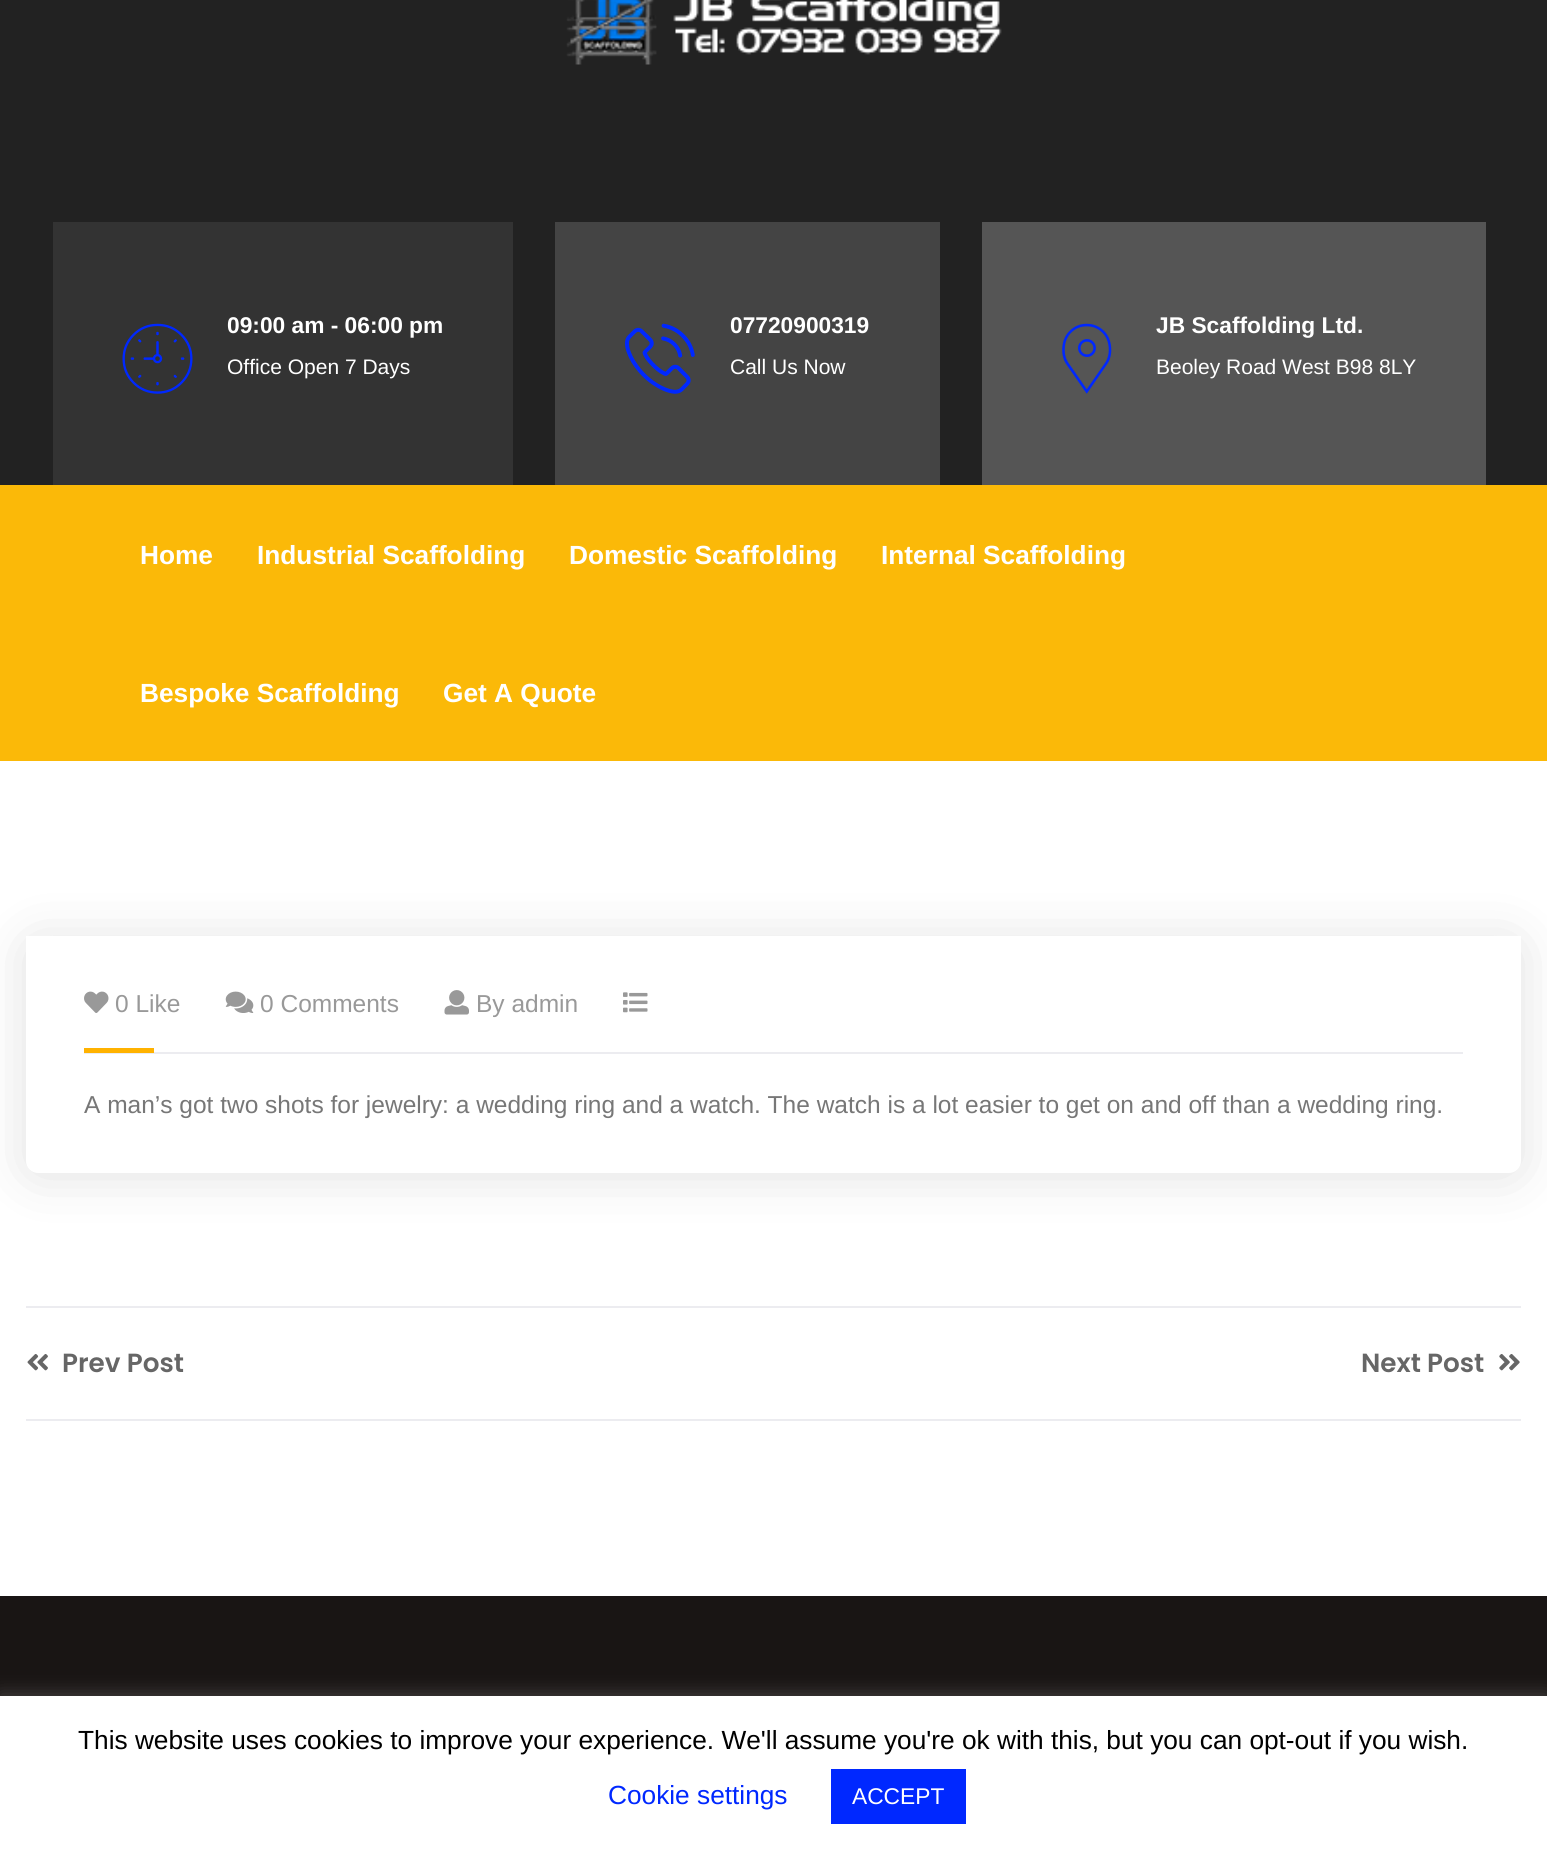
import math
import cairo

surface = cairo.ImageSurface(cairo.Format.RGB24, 1547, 1853)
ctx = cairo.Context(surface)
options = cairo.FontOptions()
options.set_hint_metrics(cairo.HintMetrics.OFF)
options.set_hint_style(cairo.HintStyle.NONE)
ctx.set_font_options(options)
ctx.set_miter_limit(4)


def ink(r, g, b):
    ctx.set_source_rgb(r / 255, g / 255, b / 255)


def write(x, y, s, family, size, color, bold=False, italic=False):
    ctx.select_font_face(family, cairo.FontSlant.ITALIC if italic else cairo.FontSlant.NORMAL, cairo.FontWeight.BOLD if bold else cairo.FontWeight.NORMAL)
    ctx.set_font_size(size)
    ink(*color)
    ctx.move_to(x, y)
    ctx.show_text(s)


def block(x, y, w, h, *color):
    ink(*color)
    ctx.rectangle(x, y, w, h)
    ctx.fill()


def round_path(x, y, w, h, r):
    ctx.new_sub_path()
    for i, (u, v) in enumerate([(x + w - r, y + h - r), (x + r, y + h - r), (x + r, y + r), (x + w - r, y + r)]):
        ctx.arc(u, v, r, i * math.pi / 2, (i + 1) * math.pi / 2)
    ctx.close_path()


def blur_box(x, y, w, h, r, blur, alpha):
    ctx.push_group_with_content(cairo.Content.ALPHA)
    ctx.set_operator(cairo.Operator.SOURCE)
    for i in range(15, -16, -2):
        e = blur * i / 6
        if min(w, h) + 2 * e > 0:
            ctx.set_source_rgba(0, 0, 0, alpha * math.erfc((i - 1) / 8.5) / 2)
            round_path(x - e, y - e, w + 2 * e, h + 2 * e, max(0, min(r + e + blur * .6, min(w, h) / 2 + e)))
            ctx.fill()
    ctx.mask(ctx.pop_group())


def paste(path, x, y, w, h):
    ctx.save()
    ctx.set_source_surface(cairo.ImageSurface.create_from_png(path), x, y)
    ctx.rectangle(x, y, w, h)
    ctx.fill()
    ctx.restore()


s1 = dict(family="Arimo", size=22.75, color=(255, 255, 255), bold=True)
s2 = dict(family="Arimo", size=21, color=(255, 255, 255))
s3 = dict(family="Arimo", size=26.25, color=(255, 255, 255), bold=True)
s4 = dict(family="Arimo", size=24.5, color=(153, 153, 153))
s5 = dict(family="Arimo", size=24.5, color=(119, 119, 119))
s6 = dict(family="Poppins SemiBold", size=26.25, color=(102, 102, 102))
s7 = dict(family="Arimo", size=26.25, color=(0, 0, 0))
s8 = dict(family="Arimo", size=26.25, color=(0, 40, 255))
s9 = dict(family="Arimo", size=22.75, color=(255, 255, 255))

ink(255, 255, 255)
ctx.paint()
block(0, 0, 1547, 485, 34, 34, 34)
paste("pic1.png", 566, 0, 436, 65)
block(53, 222, 460, 263, 51, 51, 51)
paste("pic2.png", 122, 323, 71, 71)
write(227, 333, "09:00 am - 06:00 pm", **s1)
write(227, 374, "Office Open 7 Days", **s2)
block(555, 222, 385, 263, 68, 68, 68)
paste("pic3.png", 625, 323, 70, 71)
write(730, 333, "07720900319", **s1)
write(730, 374, "Call Us Now", **s2)
block(982, 222, 504, 263, 85, 85, 85)
paste("pic4.png", 1062, 323, 50, 71)
write(1156, 333, "JB Scaffolding Ltd.", **s1)
write(1156, 374, "Beoley Road West B98 8LY", **s2)
block(0, 485, 1547, 276, 251, 185, 8)
write(140, 564, "Home", **s3)
write(257, 564, "Industrial Scaffolding", **s3)
write(569, 564, "Domestic Scaffolding", **s3)
write(881, 564, "Internal Scaffolding", **s3)
write(140, 702, "Bespoke Scaffolding", **s3)
write(443, 702, "Get A Quote", **s3)
ink(34, 34, 34)
blur_box(26, 940, 1495, 236, 12, 25.5, 0.14)
ink(255, 255, 255)
ctx.new_path()
ctx.move_to(26, 936)
ctx.line_to(1521, 936)
ctx.line_to(1521, 1161)
ctx.curve_to(1521, 1167.5, 1515.5, 1173, 1509, 1173)
ctx.line_to(38, 1173)
ctx.curve_to(31.5, 1173, 26, 1167.5, 26, 1161)
ctx.close_path()
ctx.fill()
block(84, 1052, 1379, 2, 236, 236, 240)
paste("pic5.png", 84, 991, 25, 22)
write(115, 1012, "0 Like", **s4)
paste("pic6.png", 225, 991, 29, 22)
write(260, 1012, "0 Comments", **s4)
paste("pic7.png", 444, 990, 25, 25)
write(476, 1012, "By admin", **s4)
paste("pic8.png", 623, 992, 25, 21)
block(84, 1048, 70, 5, 255, 178, 0)
write(84, 1113, "A man’s got two shots for jewelry: a wedding ring and a watch. The watch is a lot easier to get on and off than a wedding ring.", **s5)
block(26, 1306, 1495, 2, 236, 236, 240)
block(26, 1419, 1495, 2, 236, 236, 240)
paste("pic9.png", 27, 1354, 21, 17)
write(62, 1372, "Prev Post", **s6)
write(1361, 1372, "Next Post", **s6)
paste("pic10.png", 1499, 1354, 21, 17)
block(0, 1596, 1547, 100, 25, 21, 20)
ink(172, 171, 171)
blur_box(0, 1694, 1547, 158, 0, 9, 0.3)
block(0, 1696, 1547, 157, 255, 255, 255)
write(78, 1749, "This website uses cookies to improve your experience. We'll assume you're ok with this, but you can opt-out if you wish.", **s7)
write(608, 1804, "Cookie settings", **s8)
block(831, 1769, 135, 55, 0, 40, 255)
write(852, 1804, "ACCEPT", **s9)
surface.write_to_png("screenshot.png")
